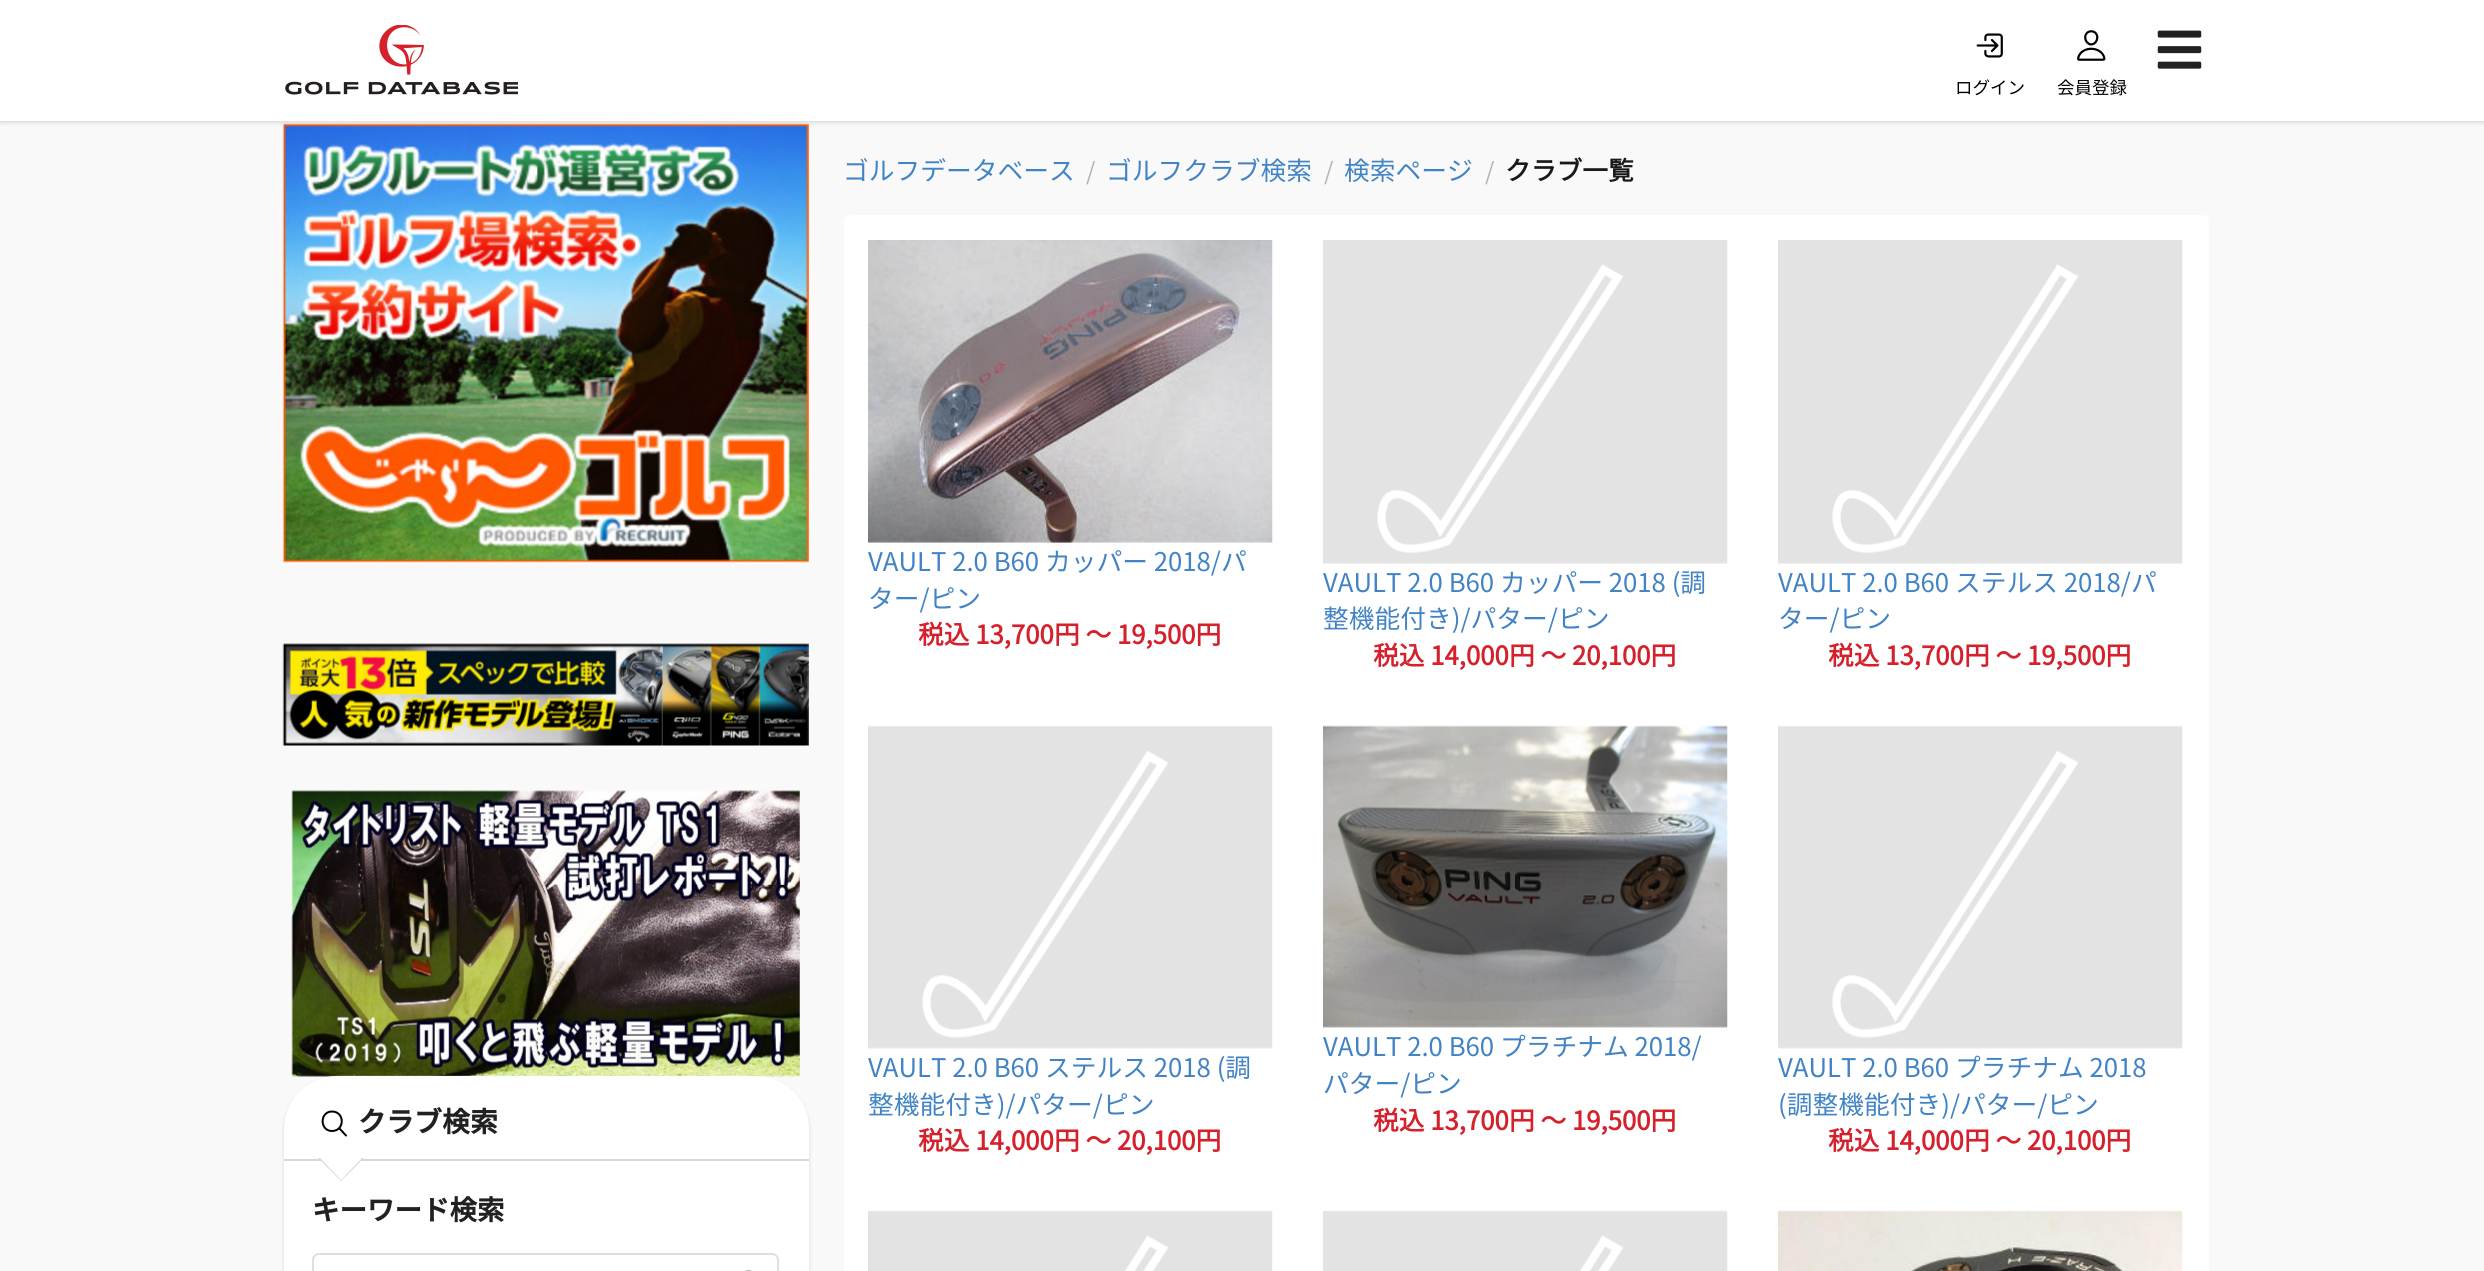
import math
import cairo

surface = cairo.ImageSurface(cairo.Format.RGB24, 2484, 1271)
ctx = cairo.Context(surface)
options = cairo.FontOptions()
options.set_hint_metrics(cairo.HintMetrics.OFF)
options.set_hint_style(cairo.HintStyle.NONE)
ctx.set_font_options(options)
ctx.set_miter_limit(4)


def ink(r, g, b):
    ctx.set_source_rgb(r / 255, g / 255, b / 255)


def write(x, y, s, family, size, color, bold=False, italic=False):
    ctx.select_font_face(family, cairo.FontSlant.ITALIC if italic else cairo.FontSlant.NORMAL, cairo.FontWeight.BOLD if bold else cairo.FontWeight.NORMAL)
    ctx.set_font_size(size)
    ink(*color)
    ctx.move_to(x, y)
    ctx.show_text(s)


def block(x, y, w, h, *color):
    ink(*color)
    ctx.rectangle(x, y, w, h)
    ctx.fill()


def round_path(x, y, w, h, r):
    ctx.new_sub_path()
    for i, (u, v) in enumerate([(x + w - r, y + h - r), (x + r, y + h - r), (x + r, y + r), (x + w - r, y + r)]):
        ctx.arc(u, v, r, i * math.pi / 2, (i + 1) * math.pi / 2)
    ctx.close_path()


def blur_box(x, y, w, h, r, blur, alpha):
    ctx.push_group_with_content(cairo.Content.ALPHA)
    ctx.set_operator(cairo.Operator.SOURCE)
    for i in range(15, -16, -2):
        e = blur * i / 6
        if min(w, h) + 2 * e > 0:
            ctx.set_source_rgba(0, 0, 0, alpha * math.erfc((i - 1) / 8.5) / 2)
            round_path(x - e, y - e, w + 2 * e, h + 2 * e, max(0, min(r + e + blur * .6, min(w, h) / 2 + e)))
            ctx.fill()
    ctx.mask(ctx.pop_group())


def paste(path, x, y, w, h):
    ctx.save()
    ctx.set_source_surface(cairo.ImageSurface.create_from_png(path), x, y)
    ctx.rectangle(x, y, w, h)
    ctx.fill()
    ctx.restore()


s1 = dict(family="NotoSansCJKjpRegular", size=17.5, color=(0, 0, 0))
s2 = dict(family="Noto Sans CJK JP", size=28, color=(33, 33, 33), bold=True)
s3 = dict(family="Noto Sans CJK JP", size=27.5, color=(33, 33, 33), bold=True)
s4 = dict(family="NotoSansCJKjpRegular", size=25.75, color=(65, 131, 196))
s5 = dict(family="NotoSansCJKjpRegular", size=24, color=(179, 179, 179))
s6 = dict(family="NotoSansCJKjpRegular", size=25.75, color=(26, 24, 25), bold=True)
s7 = dict(family="NotoSansCJKjpRegular", size=25.75, color=(212, 33, 43), bold=True)

ink(249, 249, 249)
ctx.paint()
paste("pic5.png", 282, 123, 527, 440)
ink(34, 36, 38)
blur_box(0, 2, 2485, 121, 0, 2, 0.15)
block(0, 0, 2484, 121, 255, 255, 255)
paste("pic1.png", 285, 25, 233, 70)
paste("pic2.png", 2157, 30, 45, 39)
paste("pic3.png", 1976, 33, 27, 25)
write(1955, 94, "ログイン", **s1)
paste("pic4.png", 2077, 30, 29, 31)
write(2057, 94, "会員登録", **s1)
paste("pic6.png", 282, 643, 527, 103)
paste("pic7.png", 291, 790, 509, 287)
ink(34, 36, 38)
blur_box(284, 1078, 525, 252, 53, 2, 0.15)
ink(255, 255, 255)
round_path(284, 1076, 525, 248, 53)
ctx.fill()
block(284, 1159, 525, 2, 217, 216, 216)
ctx.new_path()
ctx.move_to(332, 1111.5)
ctx.curve_to(319.5, 1111.5, 319.5, 1131, 332, 1131)
ctx.curve_to(345, 1131, 345, 1111.5, 332, 1111.5)
ctx.close_path()
ink(0, 0, 0)
ctx.stroke()
write(358, 1132, "クラブ検索", **s2)
ctx.new_path()
ctx.move_to(339.5, 1128.5)
ctx.line_to(346, 1135.5)
ink(0, 0, 0)
ctx.set_line_cap(cairo.LineCap.ROUND)
ctx.stroke()
ink(217, 216, 216)
ctx.new_path()
ctx.move_to(318, 1158)
ctx.line_to(364, 1158)
ctx.line_to(341, 1181)
ctx.close_path()
ctx.fill()
ink(255, 255, 255)
ctx.new_path()
ctx.move_to(320, 1158)
ctx.line_to(362, 1158)
ctx.line_to(341, 1180)
ctx.close_path()
ctx.fill()
write(312, 1220, "キーワード検索", **s3)
round_path(313, 1254, 465, 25, 6)
ink(222, 222, 222)
ctx.set_line_cap(cairo.LineCap.BUTT)
ctx.stroke()
paste("pic8.png", 745, 1270, 7, 1)
write(843, 180, "ゴルフデータベース", **s4)
write(1086, 180, "/", **s5)
write(1106, 180, "ゴルフクラブ検索", **s4)
write(1324, 180, "/", **s5)
write(1344, 180, "検索ページ", **s4)
write(1485, 180, "/", **s5)
write(1505, 180, "クラブ一覧", **s6)
ink(255, 255, 255)
round_path(844, 215, 1365, 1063, 7)
ctx.fill()
paste("pic9.png", 868, 240, 405, 303)
write(868, 571, "VAULT 2.0 B60 カッパー 2018/パ", **s4)
write(868, 608, "ター/ピン", **s4)
write(918, 644, "税込 13,700円 ～ 19,500円", **s7)
paste("pic10.png", 1323, 240, 405, 324)
write(1323, 592, "VAULT 2.0 B60 カッパー 2018 (調", **s4)
write(1323, 628, "整機能付き)/パター/ピン", **s4)
write(1373, 665, "税込 14,000円 ～ 20,100円", **s7)
paste("pic11.png", 1778, 240, 405, 324)
write(1778, 592, "VAULT 2.0 B60 ステルス 2018/パ", **s4)
write(1778, 628, "ター/ピン", **s4)
write(1828, 665, "税込 13,700円 ～ 19,500円", **s7)
paste("pic12.png", 868, 725, 405, 324)
write(868, 1077, "VAULT 2.0 B60 ステルス 2018 (調", **s4)
write(868, 1114, "整機能付き)/パター/ピン", **s4)
write(918, 1150, "税込 14,000円 ～ 20,100円", **s7)
paste("pic13.png", 1323, 725, 405, 303)
write(1323, 1056, "VAULT 2.0 B60 プラチナム 2018/", **s4)
write(1323, 1093, "パター/ピン", **s4)
write(1373, 1130, "税込 13,700円 ～ 19,500円", **s7)
paste("pic14.png", 1778, 725, 405, 324)
write(1778, 1077, "VAULT 2.0 B60 プラチナム 2018", **s4)
write(1778, 1114, "(調整機能付き)/パター/ピン", **s4)
write(1828, 1150, "税込 14,000円 ～ 20,100円", **s7)
paste("pic15.png", 868, 1210, 405, 61)
paste("pic15.png", 1323, 1210, 405, 61)
paste("pic16.png", 1778, 1210, 405, 61)
surface.write_to_png("screenshot.png")
